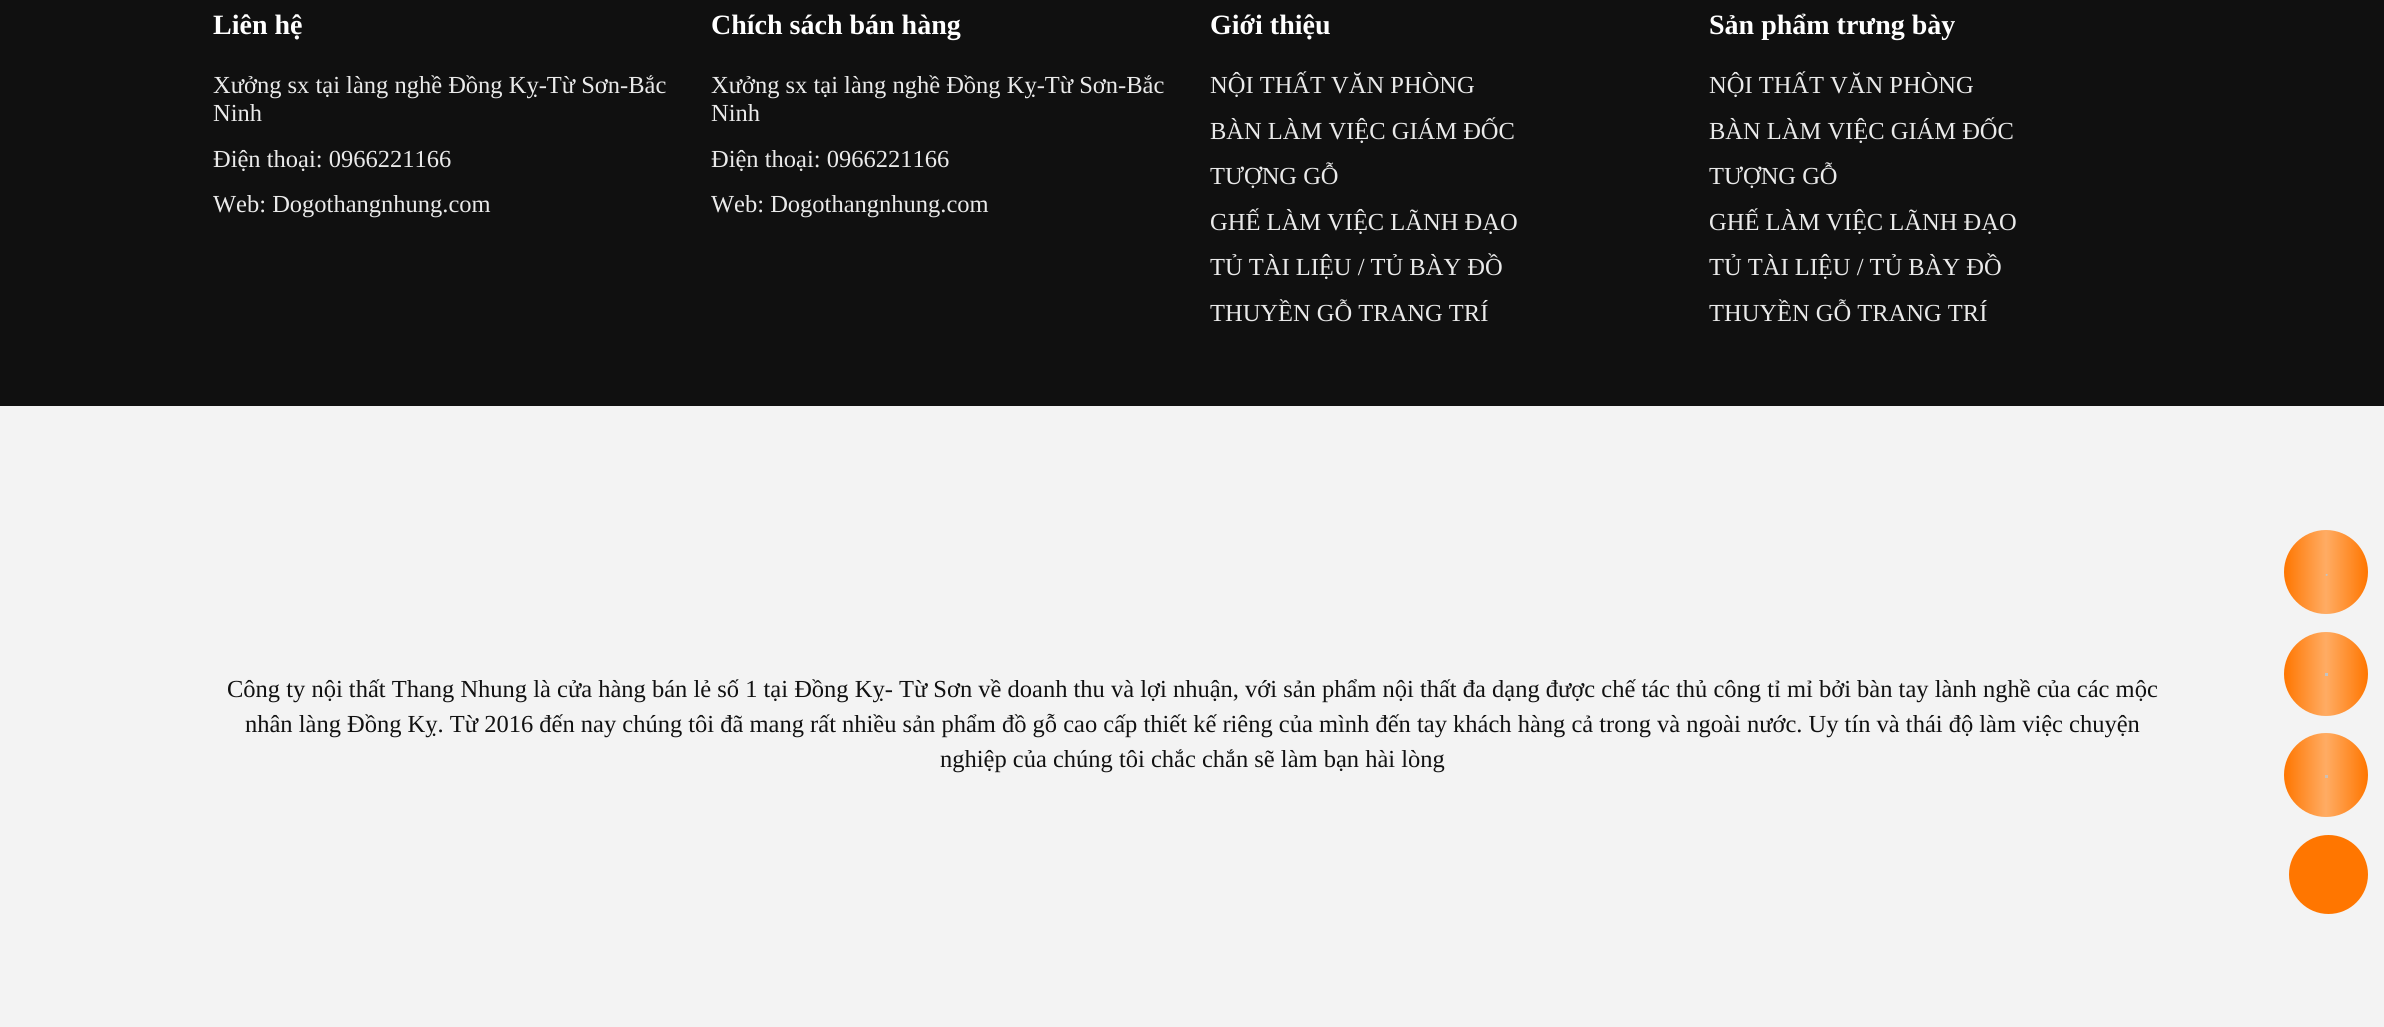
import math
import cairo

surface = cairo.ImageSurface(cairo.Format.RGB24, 2384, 1027)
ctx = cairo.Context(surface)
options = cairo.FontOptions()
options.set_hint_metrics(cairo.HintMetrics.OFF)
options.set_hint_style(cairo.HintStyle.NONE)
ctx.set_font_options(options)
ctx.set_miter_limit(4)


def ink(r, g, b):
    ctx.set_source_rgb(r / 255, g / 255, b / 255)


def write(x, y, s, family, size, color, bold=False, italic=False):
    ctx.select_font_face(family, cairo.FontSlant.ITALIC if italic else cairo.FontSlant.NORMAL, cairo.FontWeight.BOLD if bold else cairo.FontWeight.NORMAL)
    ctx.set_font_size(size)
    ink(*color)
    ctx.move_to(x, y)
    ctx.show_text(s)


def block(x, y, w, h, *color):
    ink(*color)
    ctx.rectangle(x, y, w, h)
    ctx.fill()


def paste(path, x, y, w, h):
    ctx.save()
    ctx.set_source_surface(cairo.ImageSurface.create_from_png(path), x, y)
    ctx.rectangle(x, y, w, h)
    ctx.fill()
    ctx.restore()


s1 = dict(family="Liberation Serif", size=28, color=(255, 255, 255), bold=True)
s2 = dict(family="Liberation Serif", size=24.5, color=(234, 234, 234))
s3 = dict(family="Liberation Serif", size=24.5, color=(17, 17, 17))

ink(16, 16, 16)
ctx.paint()
write(213, 34, "Liên hệ", **s1)
write(213, 93, "Xưởng sx tại làng nghề Đồng Kỵ-Từ Sơn-Bắc", **s2)
write(213, 121, "Ninh", **s2)
write(213, 167, "Điện thoại: 0966221166", **s2)
write(213, 212, "Web: Dogothangnhung.com", **s2)
write(711, 34, "Chích sách bán hàng", **s1)
write(711, 93, "Xưởng sx tại làng nghề Đồng Kỵ-Từ Sơn-Bắc", **s2)
write(711, 121, "Ninh", **s2)
write(711, 167, "Điện thoại: 0966221166", **s2)
write(711, 212, "Web: Dogothangnhung.com", **s2)
write(1210, 34, "Giới thiệu", **s1)
write(1210, 93, "NỘI THẤT VĂN PHÒNG", **s2)
write(1210, 139, "BÀN LÀM VIỆC GIÁM ĐỐC", **s2)
write(1210, 184, "TƯỢNG GỖ", **s2)
write(1210, 230, "GHẾ LÀM VIỆC LÃNH ĐẠO", **s2)
write(1210, 275, "TỦ TÀI LIỆU / TỦ BÀY ĐỒ", **s2)
write(1210, 321, "THUYỀN GỖ TRANG TRÍ", **s2)
write(1709, 34, "Sản phẩm trưng bày", **s1)
write(1709, 93, "NỘI THẤT VĂN PHÒNG", **s2)
write(1709, 139, "BÀN LÀM VIỆC GIÁM ĐỐC", **s2)
write(1709, 184, "TƯỢNG GỖ", **s2)
write(1709, 230, "GHẾ LÀM VIỆC LÃNH ĐẠO", **s2)
write(1709, 275, "TỦ TÀI LIỆU / TỦ BÀY ĐỒ", **s2)
write(1709, 321, "THUYỀN GỖ TRANG TRÍ", **s2)
block(0, 406, 2384, 621, 243, 243, 243)
write(227, 697, "Công ty nội thất Thang Nhung là cửa hàng bán lẻ số 1 tại Đồng Kỵ- Từ Sơn về doanh thu và lợi nhuận, với sản phẩm nội thất đa dạng được chế tác thủ công tỉ mỉ bởi bàn tay lành nghề của các mộc", **s3)
write(245, 732, "nhân làng Đồng Kỵ. Từ 2016 đến nay chúng tôi đã mang rất nhiều sản phẩm đồ gỗ cao cấp thiết kế riêng của mình đến tay khách hàng cả trong và ngoài nước. Uy tín và thái độ làm việc chuyện", **s3)
write(940, 767, "nghiệp của chúng tôi chắc chắn sẽ làm bạn hài lòng", **s3)
gradient = cairo.LinearGradient(2284, 572, 2368, 572)
gradient.add_color_stop_rgba(0, 1, 0.463, 0, 1)
gradient.add_color_stop_rgba(0.5, 1, 0.675, 0.392, 1)
gradient.add_color_stop_rgba(1, 1, 0.463, 0, 1)
ctx.set_source(gradient)
ctx.new_path()
ctx.arc(2326, 572, 42, 0, 2 * math.pi)
ctx.fill()
paste("pic1.png", 2325, 574, 3, 2)
gradient = cairo.LinearGradient(2284, 674, 2368, 674)
gradient.add_color_stop_rgba(0, 1, 0.463, 0, 1)
gradient.add_color_stop_rgba(0.5, 1, 0.675, 0.392, 1)
gradient.add_color_stop_rgba(1, 1, 0.463, 0, 1)
ctx.set_source(gradient)
ctx.arc(2326, 674, 42, 0, 2 * math.pi)
ctx.fill()
block(2325, 673, 3, 3, 195, 195, 195)
gradient = cairo.LinearGradient(2284, 775, 2368, 775)
gradient.add_color_stop_rgba(0, 1, 0.463, 0, 1)
gradient.add_color_stop_rgba(0.5, 1, 0.675, 0.392, 1)
gradient.add_color_stop_rgba(1, 1, 0.463, 0, 1)
ctx.set_source(gradient)
ctx.arc(2326, 775, 42, 0, 2 * math.pi)
ctx.fill()
gradient = cairo.LinearGradient(2284, 775, 2368, 775)
gradient.add_color_stop_rgba(0, 0.812, 0.71, 0.624, 1)
gradient.add_color_stop_rgba(0.5, 0.812, 0.749, 0.698, 1)
gradient.add_color_stop_rgba(1, 0.812, 0.71, 0.624, 1)
ctx.set_source(gradient)
ctx.rectangle(2325, 775, 3, 3)
ctx.fill()
ink(255, 118, 0)
ctx.arc(2328.5, 874.5, 39.5, 0, 2 * math.pi)
ctx.fill()
surface.write_to_png("screenshot.png")
